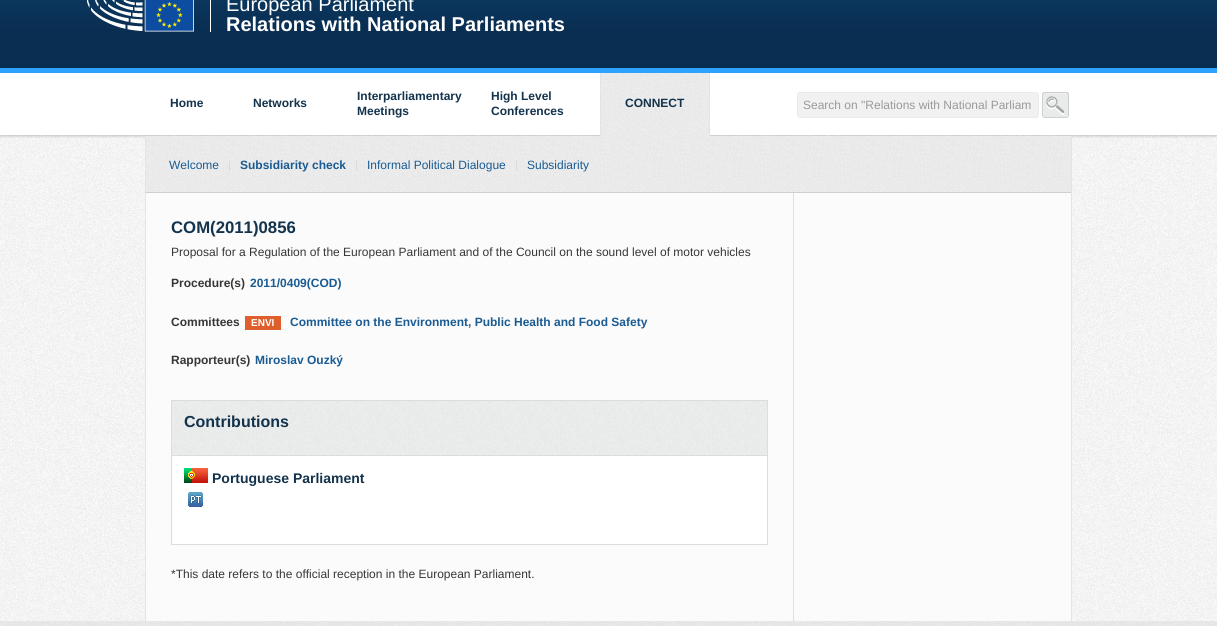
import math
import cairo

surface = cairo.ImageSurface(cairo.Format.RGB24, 1217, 626)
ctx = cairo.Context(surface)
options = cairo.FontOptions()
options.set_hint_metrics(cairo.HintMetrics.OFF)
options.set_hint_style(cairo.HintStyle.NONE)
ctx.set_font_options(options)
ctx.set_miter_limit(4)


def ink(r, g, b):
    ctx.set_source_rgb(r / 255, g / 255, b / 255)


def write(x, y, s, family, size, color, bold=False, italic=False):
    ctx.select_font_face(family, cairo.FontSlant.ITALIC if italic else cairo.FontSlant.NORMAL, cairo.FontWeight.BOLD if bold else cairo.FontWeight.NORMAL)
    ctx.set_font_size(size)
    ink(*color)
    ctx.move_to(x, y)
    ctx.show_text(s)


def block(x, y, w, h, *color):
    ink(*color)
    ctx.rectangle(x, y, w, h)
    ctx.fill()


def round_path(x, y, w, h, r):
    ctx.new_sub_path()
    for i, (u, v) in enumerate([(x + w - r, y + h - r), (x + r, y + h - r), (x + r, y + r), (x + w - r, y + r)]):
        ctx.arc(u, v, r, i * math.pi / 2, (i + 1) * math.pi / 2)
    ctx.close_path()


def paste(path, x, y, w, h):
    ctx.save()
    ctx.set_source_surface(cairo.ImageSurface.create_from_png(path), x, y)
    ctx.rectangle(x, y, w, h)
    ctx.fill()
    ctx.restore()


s1 = dict(family="Liberation Sans", size=20, color=(255, 255, 255))
s2 = dict(family="Liberation Sans", size=20, color=(255, 255, 255), bold=True)
s3 = dict(family="Liberation Sans", size=12, color=(19, 51, 77), bold=True)
s4 = dict(family="Liberation Sans", size=12, color=(153, 153, 153))
s5 = dict(family="Liberation Sans", size=12, color=(25, 91, 146))
s6 = dict(family="Liberation Sans", size=12, color=(25, 91, 146), bold=True)
s7 = dict(family="Liberation Sans", size=16.75, color=(19, 51, 77), bold=True)
s8 = dict(family="Liberation Sans", size=12, color=(54, 54, 54))
s9 = dict(family="Liberation Sans", size=12, color=(54, 54, 54), bold=True)
s10 = dict(family="Liberation Sans", size=10, color=(255, 255, 255), bold=True)
s11 = dict(family="Liberation Sans", size=16, color=(19, 51, 77), bold=True)
s12 = dict(family="Liberation Sans", size=14, color=(19, 51, 77), bold=True)

ink(255, 255, 255)
ctx.paint()
paste("pic1.png", 0, 135, 1217, 486)
paste("pic2.png", 0, 0, 1217, 68)
block(0, 68, 1217, 5, 46, 162, 255)
block(210, 0, 1, 32, 255, 255, 255)
paste("pic3.png", 87, 0, 107, 32)
write(226, 11, "European Parliament", **s1)
write(226, 31, "Relations with National Parliaments", **s2)
paste("pic4.png", 0, 73, 1217, 65)
write(170, 107, "Home", **s3)
write(253, 107, "Networks", **s3)
write(357, 100, "Interparliamentary", **s3)
write(357, 115, "Meetings", **s3)
write(491, 100, "High Level", **s3)
write(491, 115, "Conferences", **s3)
paste("pic5.png", 601, 73, 108, 63)
block(709, 73, 1, 63, 224, 229, 231)
block(600, 73, 1, 63, 224, 229, 231)
write(625, 107, "CONNECT", **s3)
ink(241, 241, 241)
round_path(797.5, 92.5, 241, 25, 2.5)
ctx.fill_preserve()
ink(234, 235, 236)
ctx.set_line_width(1)
ctx.stroke()
write(803, 109, "Search on \"Relations with National Parliam", **s4)
paste("pic6.png", 1042, 92, 27, 26)
block(146, 193, 925, 428, 251, 251, 251)
block(1071, 136, 1, 485, 224, 229, 231)
block(145, 136, 1, 485, 224, 229, 231)
paste("pic7.png", 146, 136, 925, 56)
block(146, 192, 925, 1, 207, 207, 207)
block(229, 160, 1, 11, 222, 217, 217)
write(169, 169, "Welcome", **s5)
block(356, 160, 1, 11, 222, 217, 217)
write(240, 169, "Subsidiarity check", **s6)
block(516, 160, 1, 11, 222, 217, 217)
write(367, 169, "Informal Political Dialogue", **s5)
write(527, 169, "Subsidiarity", **s5)
block(793, 193, 1, 428, 220, 225, 228)
write(171, 233, "COM(2011)0856", **s7)
write(171, 256, "Proposal for a Regulation of the European Parliament and of the Council on the sound level of motor vehicles", **s8)
write(171, 287, "Procedure(s)", **s9)
write(250, 287, "2011/0409(COD)", **s6)
write(171, 326, "Committees", **s9)
block(245, 316, 36, 14, 222, 95, 44)
write(251, 326, "ENVI", **s10)
write(290, 326, "Committee on the Environment, Public Health and Food Safety", **s6)
write(171, 364, "Rapporteur(s)", **s9)
write(255, 364, "Miroslav Ouzký", **s6)
paste("pic8.png", 172, 401, 595, 54)
ink(255, 255, 255)
ctx.rectangle(171.5, 455.5, 596, 89)
ctx.fill_preserve()
ink(217, 221, 225)
ctx.stroke()
ctx.rectangle(171.5, 400.5, 596, 55)
ctx.stroke()
write(184, 427, "Contributions", **s11)
paste("pic9.png", 184, 468, 24, 15)
write(212, 483, "Portuguese Parliament", **s12)
paste("pic10.png", 188, 492, 15, 15)
write(171, 578, "*This date refers to the official reception in the European Parliament.", **s8)
paste("pic11.png", 0, 621, 1217, 5)
surface.write_to_png("screenshot.png")
